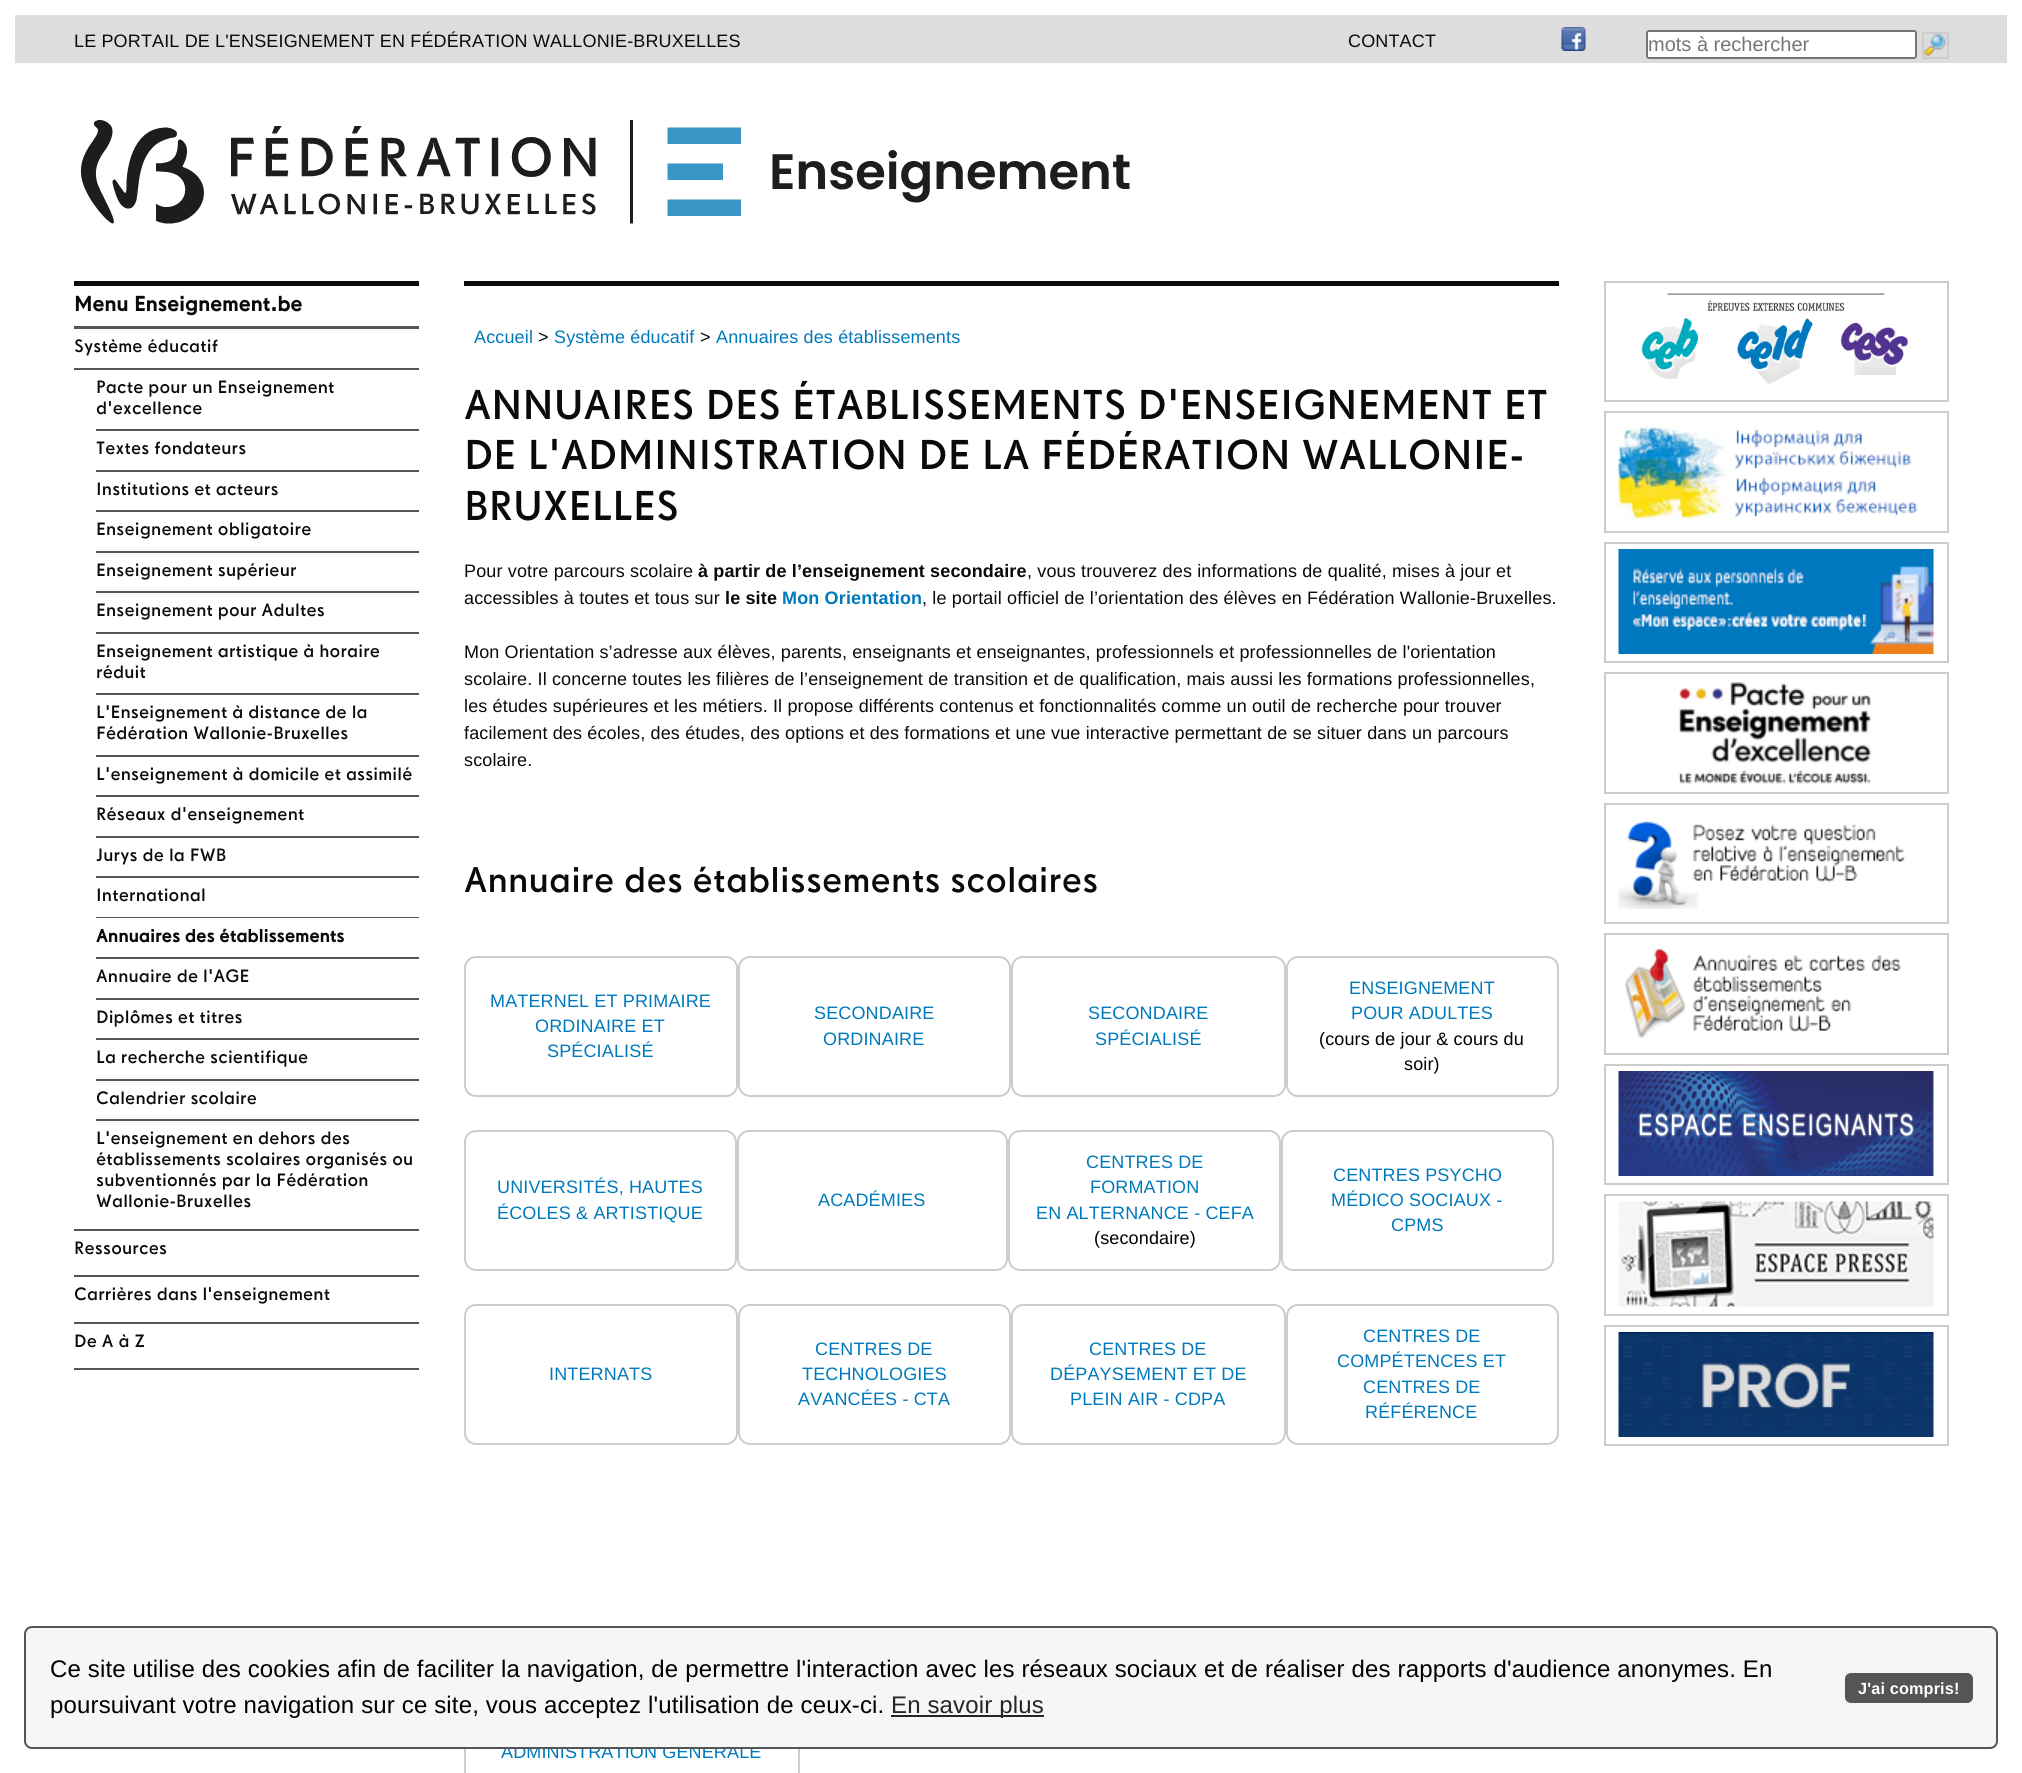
import math
import cairo

surface = cairo.ImageSurface(cairo.Format.RGB24, 2022, 1773)
ctx = cairo.Context(surface)
options = cairo.FontOptions()
options.set_hint_metrics(cairo.HintMetrics.OFF)
options.set_hint_style(cairo.HintStyle.NONE)
ctx.set_font_options(options)
ctx.set_miter_limit(4)


def ink(r, g, b):
    ctx.set_source_rgb(r / 255, g / 255, b / 255)


def write(x, y, s, family, size, color, bold=False, italic=False):
    ctx.select_font_face(family, cairo.FontSlant.ITALIC if italic else cairo.FontSlant.NORMAL, cairo.FontWeight.BOLD if bold else cairo.FontWeight.NORMAL)
    ctx.set_font_size(size)
    ink(*color)
    ctx.move_to(x, y)
    ctx.show_text(s)


def write_spaced(x, y, s, letter, word):
    ctx.move_to(x, y)
    for ch in s:
        ctx.show_text(ch)
        ctx.rel_move_to(letter + word * (ch == ' '), 0)


def block(x, y, w, h, *color):
    ink(*color)
    ctx.rectangle(x, y, w, h)
    ctx.fill()


def round_path(x, y, w, h, r):
    ctx.new_sub_path()
    for i, (u, v) in enumerate([(x + w - r, y + h - r), (x + r, y + h - r), (x + r, y + r), (x + w - r, y + r)]):
        ctx.arc(u, v, r, i * math.pi / 2, (i + 1) * math.pi / 2)
    ctx.close_path()


def paste(path, x, y, w, h):
    ctx.save()
    ctx.set_source_surface(cairo.ImageSurface.create_from_png(path), x, y)
    ctx.rectangle(x, y, w, h)
    ctx.fill()
    ctx.restore()


s1 = dict(family="Liberation Sans", size=20, color=(117, 117, 117))

ink(255, 255, 255)
ctx.paint()
block(15, 15, 1992, 48, 221, 221, 221)
ctx.select_font_face("Liberation Sans")
ctx.set_font_size(18)
ink(10, 10, 10)
write_spaced(74, 47, "LE PORTAIL DE L'ENSEIGNEMENT EN FÉDÉRATION WALLONIE-BRUXELLES", 0.15, 0)
write_spaced(1348, 47, "CONTACT", 0.15, 0)
paste("pic1.png", 1561, 27, 25, 24)
ctx.rectangle(1923, 33, 25, 25)
ink(204, 204, 204)
ctx.stroke()
ink(255, 255, 255)
round_path(1647, 31, 269, 27, 2)
ctx.fill_preserve()
ink(118, 118, 118)
ctx.stroke()
write(1648, 51, "mots à rechercher", **s1)
paste("pic2.png", 1924, 34, 22, 22)
paste("pic3.png", 80, 120, 1050, 104)
block(74, 281, 345, 5, 10, 10, 10)
block(74, 326, 345, 3, 85, 85, 85)
ctx.select_font_face("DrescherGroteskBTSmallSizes", cairo.FontSlant.NORMAL, cairo.FontWeight.BOLD)
ctx.set_font_size(21)
ink(10, 10, 10)
write_spaced(74, 311, "Menu Enseignement.be", 0.15, 0)
block(74, 1368, 345, 2, 85, 85, 85)
ctx.select_font_face("DrescherGroteskBTSmallSizes")
ctx.set_font_size(18)
ink(10, 10, 10)
write_spaced(74, 352, "Système éducatif", 0.15, 0)
block(74, 368, 345, 2, 85, 85, 85)
ink(10, 10, 10)
write_spaced(96, 393, "Pacte pour un Enseignement", 0.15, 0)
write_spaced(96, 414, "d'excellence", 0.15, 0)
block(96, 429, 323, 2, 85, 85, 85)
ink(10, 10, 10)
write_spaced(96, 454, "Textes fondateurs", 0.15, 0)
block(96, 470, 323, 2, 85, 85, 85)
ink(10, 10, 10)
write_spaced(96, 495, "Institutions et acteurs", 0.15, 0)
block(96, 510, 323, 2, 85, 85, 85)
ink(10, 10, 10)
write_spaced(96, 535, "Enseignement obligatoire", 0.15, 0)
block(96, 551, 323, 2, 85, 85, 85)
ink(10, 10, 10)
write_spaced(96, 576, "Enseignement supérieur", 0.15, 0)
block(96, 591, 323, 2, 85, 85, 85)
ink(10, 10, 10)
write_spaced(96, 616, "Enseignement pour Adultes", 0.15, 0)
block(96, 632, 323, 2, 85, 85, 85)
ink(10, 10, 10)
write_spaced(96, 657, "Enseignement artistique à horaire", 0.15, 0)
write_spaced(96, 678, "réduit", 0.15, 0)
block(96, 693, 323, 2, 85, 85, 85)
ink(10, 10, 10)
write_spaced(96, 718, "L'Enseignement à distance de la", 0.15, 0)
write_spaced(96, 739, "Fédération Wallonie-Bruxelles", 0.15, 0)
block(96, 755, 323, 2, 85, 85, 85)
ink(10, 10, 10)
write_spaced(96, 780, "L'enseignement à domicile et assimilé", 0.15, 0)
block(96, 795, 323, 2, 85, 85, 85)
ink(10, 10, 10)
write_spaced(96, 820, "Réseaux d'enseignement", 0.15, 0)
block(96, 836, 323, 2, 85, 85, 85)
ink(10, 10, 10)
write_spaced(96, 861, "Jurys de la FWB", 0.15, 0)
block(96, 876, 323, 2, 85, 85, 85)
ink(10, 10, 10)
write_spaced(96, 901, "International", 0.15, 0)
block(96, 917, 323, 1, 85, 85, 85)
ctx.select_font_face("DrescherGroteskBTSmallSizes", cairo.FontSlant.NORMAL, cairo.FontWeight.BOLD)
ink(10, 10, 10)
write_spaced(96, 942, "Annuaires des établissements", 0.15, 0)
block(96, 957, 323, 2, 85, 85, 85)
ctx.select_font_face("DrescherGroteskBTSmallSizes")
ink(10, 10, 10)
write_spaced(96, 982, "Annuaire de l'AGE", 0.15, 0)
block(96, 998, 323, 2, 85, 85, 85)
ink(10, 10, 10)
write_spaced(96, 1023, "Diplômes et titres", 0.15, 0)
block(96, 1038, 323, 2, 85, 85, 85)
ink(10, 10, 10)
write_spaced(96, 1063, "La recherche scientifique", 0.15, 0)
block(96, 1079, 323, 2, 85, 85, 85)
ink(10, 10, 10)
write_spaced(96, 1104, "Calendrier scolaire", 0.15, 0)
block(96, 1119, 323, 2, 85, 85, 85)
ink(10, 10, 10)
write_spaced(96, 1144, "L'enseignement en dehors des", 0.15, 0)
write_spaced(96, 1165, "établissements scolaires organisés ou", 0.15, 0)
write_spaced(96, 1186, "subventionnés par la Fédération", 0.15, 0)
write_spaced(96, 1207, "Wallonie-Bruxelles", 0.15, 0)
block(74, 1229, 345, 2, 85, 85, 85)
ink(10, 10, 10)
write_spaced(74, 1254, "Ressources", 0.15, 0)
block(74, 1275, 345, 2, 85, 85, 85)
ink(10, 10, 10)
write_spaced(74, 1300, "Carrières dans l'enseignement", 0.15, 0)
block(74, 1322, 345, 2, 85, 85, 85)
ink(10, 10, 10)
write_spaced(74, 1347, "De A à Z", 0.15, 0)
block(464, 281, 1095, 5, 10, 10, 10)
ctx.select_font_face("Liberation Sans")
ink(0, 121, 188)
write_spaced(474, 343, "Accueil", 0.15, 0)
ink(10, 10, 10)
write_spaced(538, 343, ">", 0.15, 0)
ink(0, 121, 188)
write_spaced(554, 343, "Système éducatif", 0.15, 0)
ink(10, 10, 10)
write_spaced(700, 343, ">", 0.15, 0)
ink(0, 121, 188)
write_spaced(716, 343, "Annuaires des établissements", 0.15, 0)
ctx.select_font_face("DrescherGroteskBTSmallSizes")
ctx.set_font_size(42)
ink(10, 10, 10)
write_spaced(464, 419, "ANNUAIRES DES ÉTABLISSEMENTS D'ENSEIGNEMENT ET", 0.15, 0)
write_spaced(464, 469, "DE L'ADMINISTRATION DE LA FÉDÉRATION WALLONIE-", 0.15, 0)
write_spaced(464, 520, "BRUXELLES", 0.15, 0)
ctx.select_font_face("Liberation Sans")
ctx.set_font_size(18)
write_spaced(464, 577, "Pour votre parcours scolaire", 0.15, 0)
ctx.select_font_face("Liberation Sans", cairo.FontSlant.NORMAL, cairo.FontWeight.BOLD)
write_spaced(698, 577, "à partir de l’enseignement secondaire", 0.15, 0)
ctx.select_font_face("Liberation Sans")
write_spaced(1027, 577, ", vous trouverez des informations de qualité, mises à jour et", 0.15, 0)
write_spaced(464, 604, "accessibles à toutes et tous sur", 0.15, 0)
ctx.select_font_face("Liberation Sans", cairo.FontSlant.NORMAL, cairo.FontWeight.BOLD)
write_spaced(725, 604, "le site", 0.15, 0)
ink(0, 121, 188)
write_spaced(782, 604, "Mon Orientation", 0.15, 0)
ctx.select_font_face("Liberation Sans")
ink(10, 10, 10)
write_spaced(922, 604, ", le portail officiel de l’orientation des élèves en Fédération Wallonie-Bruxelles.", 0.15, 0)
write_spaced(464, 658, "Mon Orientation s’adresse aux élèves, parents, enseignants et enseignantes, professionnels et professionnelles de l'orientation", 0.15, 0)
write_spaced(464, 685, "scolaire. Il concerne toutes les filières de l’enseignement de transition et de qualification, mais aussi les formations professionnelles,", 0.15, 0)
write_spaced(464, 712, "les études supérieures et les métiers. Il propose différents contenus et fonctionnalités comme un outil de recherche pour trouver", 0.15, 0)
write_spaced(464, 739, "facilement des écoles, des études, des options et des formations et une vue interactive permettant de se situer dans un parcours", 0.15, 0)
write_spaced(464, 766, "scolaire.", 0.15, 0)
ctx.select_font_face("DrescherGroteskBTSmallSizes")
ctx.set_font_size(36)
write_spaced(464, 892, "Annuaire des établissements scolaires", 0.15, 0)
round_path(465, 957, 272, 139, 11)
ink(204, 204, 204)
ctx.stroke()
ctx.select_font_face("Liberation Sans")
ctx.set_font_size(18)
ink(0, 121, 188)
write_spaced(490, 1007, "MATERNEL ET PRIMAIRE", 0.15, 0)
write_spaced(535, 1032, "ORDINAIRE ET", 0.15, 0)
write_spaced(547, 1057, "SPÉCIALISÉ", 0.15, 0)
round_path(739, 957, 271, 139, 11)
ink(204, 204, 204)
ctx.stroke()
ink(0, 121, 188)
write_spaced(814, 1019, "SECONDAIRE", 0.15, 0)
write_spaced(823, 1045, "ORDINAIRE", 0.15, 0)
round_path(1012, 957, 273, 139, 11)
ink(204, 204, 204)
ctx.stroke()
ink(0, 121, 188)
write_spaced(1088, 1019, "SECONDAIRE", 0.15, 0)
write_spaced(1095, 1045, "SPÉCIALISÉ", 0.15, 0)
round_path(1287, 957, 271, 139, 11)
ink(204, 204, 204)
ctx.stroke()
ink(0, 121, 188)
write_spaced(1349, 994, "ENSEIGNEMENT", 0.15, 0)
write_spaced(1351, 1019, "POUR ADULTES", 0.15, 0)
ink(0, 0, 0)
write_spaced(1319, 1045, "(cours de jour & cours du", 0.15, 0)
write_spaced(1404, 1070, "soir)", 0.15, 0)
round_path(465, 1131, 271, 139, 11)
ink(204, 204, 204)
ctx.stroke()
ink(0, 121, 188)
write_spaced(497, 1193, "UNIVERSITÉS, HAUTES", 0.15, 0)
write_spaced(497, 1219, "ÉCOLES & ARTISTIQUE", 0.15, 0)
round_path(738, 1131, 269, 139, 11)
ink(204, 204, 204)
ctx.stroke()
ink(0, 121, 188)
write_spaced(818, 1206, "ACADÉMIES", 0.15, 0)
round_path(1009, 1131, 271, 139, 11)
ink(204, 204, 204)
ctx.stroke()
ink(0, 121, 188)
write_spaced(1086, 1168, "CENTRES DE", 0.15, 0)
write_spaced(1090, 1193, "FORMATION", 0.15, 0)
write_spaced(1036, 1219, "EN ALTERNANCE - CEFA", 0.15, 0)
ink(0, 0, 0)
write_spaced(1094, 1244, "(secondaire)", 0.15, 0)
round_path(1282, 1131, 271, 139, 11)
ink(204, 204, 204)
ctx.stroke()
ink(0, 121, 188)
write_spaced(1333, 1181, "CENTRES PSYCHO", 0.15, 0)
write_spaced(1331, 1206, "MÉDICO SOCIAUX -", 0.15, 0)
write_spaced(1391, 1231, "CPMS", 0.15, 0)
round_path(465, 1305, 272, 139, 11)
ink(204, 204, 204)
ctx.stroke()
ink(0, 121, 188)
write_spaced(549, 1380, "INTERNATS", 0.15, 0)
round_path(739, 1305, 271, 139, 11)
ink(204, 204, 204)
ctx.stroke()
ink(0, 121, 188)
write_spaced(815, 1355, "CENTRES DE", 0.15, 0)
write_spaced(802, 1380, "TECHNOLOGIES", 0.15, 0)
write_spaced(798, 1405, "AVANCÉES - CTA", 0.15, 0)
round_path(1012, 1305, 273, 139, 11)
ink(204, 204, 204)
ctx.stroke()
ink(0, 121, 188)
write_spaced(1089, 1355, "CENTRES DE", 0.15, 0)
write_spaced(1050, 1380, "DÉPAYSEMENT ET DE", 0.15, 0)
write_spaced(1070, 1405, "PLEIN AIR - CDPA", 0.15, 0)
round_path(1287, 1305, 271, 139, 11)
ink(204, 204, 204)
ctx.stroke()
ink(0, 121, 188)
write_spaced(1363, 1342, "CENTRES DE", 0.15, 0)
write_spaced(1337, 1367, "COMPÉTENCES ET", 0.15, 0)
write_spaced(1363, 1393, "CENTRES DE", 0.15, 0)
write_spaced(1365, 1418, "RÉFÉRENCE", 0.15, 0)
ctx.rectangle(465, 1708, 334, 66)
ink(204, 204, 204)
ctx.stroke()
ink(0, 121, 188)
write_spaced(501, 1758, "ADMINISTRATION GÉNÉRALE", 0.15, 0)
ctx.rectangle(1605, 282, 343, 119)
ink(204, 204, 204)
ctx.stroke()
paste("pic4.png", 1641, 293, 268, 92)
ctx.rectangle(1605, 412, 343, 120)
ctx.stroke()
paste("pic5.png", 1618, 420, 300, 101)
ctx.rectangle(1605, 543, 343, 119)
ctx.stroke()
paste("pic6.png", 1618, 549, 316, 105)
ctx.rectangle(1605, 673, 343, 120)
ctx.stroke()
paste("pic7.png", 1679, 682, 192, 102)
ctx.rectangle(1605, 804, 343, 119)
ctx.stroke()
paste("pic8.png", 1618, 821, 288, 88)
ctx.rectangle(1605, 934, 343, 120)
ctx.stroke()
paste("pic9.png", 1624, 948, 277, 91)
ctx.rectangle(1605, 1065, 343, 119)
ctx.stroke()
paste("pic10.png", 1618, 1071, 316, 105)
ctx.rectangle(1605, 1195, 343, 120)
ctx.stroke()
paste("pic11.png", 1618, 1201, 316, 106)
ctx.rectangle(1605, 1326, 343, 119)
ctx.stroke()
paste("pic12.png", 1618, 1332, 316, 105)
ink(246, 246, 246)
round_path(25, 1627, 1972, 121, 7)
ctx.fill_preserve()
ink(85, 85, 85)
ctx.stroke()
ctx.set_font_size(24)
ink(0, 0, 0)
write_spaced(50, 1677, "Ce site utilise des cookies afin de faciliter la navigation, de permettre l'interaction avec les réseaux sociaux et de réaliser des rapports d'audience anonymes. En", 0.15, 0)
write_spaced(50, 1713, "poursuivant votre navigation sur ce site, vous acceptez l'utilisation de ceux-ci.", 0.15, 0)
block(891, 1715, 153, 2, 37, 37, 37)
write_spaced(891, 1713, "En savoir plus", 0.15, 0)
ink(85, 85, 85)
round_path(1845, 1673, 128, 30, 6)
ctx.fill()
ctx.select_font_face("Liberation Sans", cairo.FontSlant.NORMAL, cairo.FontWeight.BOLD)
ctx.set_font_size(16.25)
ink(255, 255, 255)
write_spaced(1858, 1694, "J'ai compris!", 0.15, 0)
surface.write_to_png("screenshot.png")
